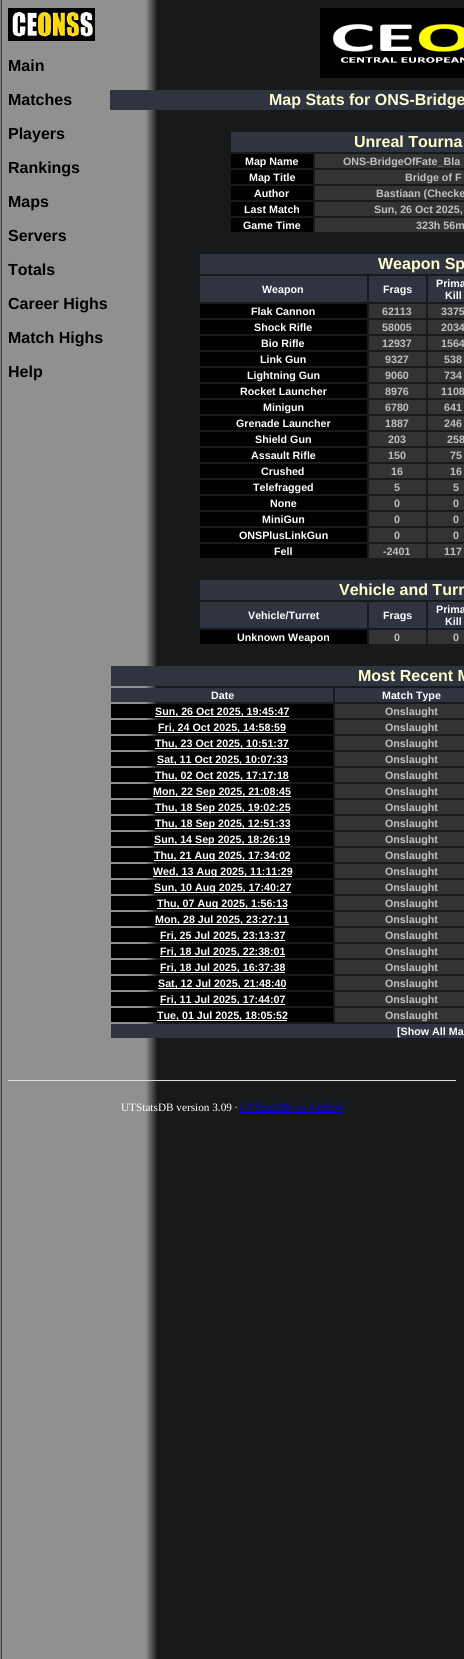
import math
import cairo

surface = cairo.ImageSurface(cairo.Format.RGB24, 464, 1659)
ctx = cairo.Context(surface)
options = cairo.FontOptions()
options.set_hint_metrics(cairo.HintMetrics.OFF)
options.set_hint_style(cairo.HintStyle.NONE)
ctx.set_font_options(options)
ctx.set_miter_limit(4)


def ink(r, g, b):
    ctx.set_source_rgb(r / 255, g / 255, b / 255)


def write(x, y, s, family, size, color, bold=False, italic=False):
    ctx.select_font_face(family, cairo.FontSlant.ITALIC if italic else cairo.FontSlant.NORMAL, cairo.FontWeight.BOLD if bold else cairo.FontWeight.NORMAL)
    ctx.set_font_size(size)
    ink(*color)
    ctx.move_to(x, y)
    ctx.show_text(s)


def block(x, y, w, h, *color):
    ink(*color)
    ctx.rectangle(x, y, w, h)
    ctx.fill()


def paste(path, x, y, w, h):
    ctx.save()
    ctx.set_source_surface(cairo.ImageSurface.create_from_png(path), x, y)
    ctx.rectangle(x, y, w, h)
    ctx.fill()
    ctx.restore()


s1 = dict(family="Liberation Sans", size=16, color=(0, 0, 0), bold=True)
s2 = dict(family="Liberation Sans", size=16, color=(255, 255, 204), bold=True)
s3 = dict(family="Liberation Sans", size=10.7, color=(255, 255, 255), bold=True)
s4 = dict(family="Liberation Sans", size=10.7, color=(192, 192, 192), bold=True)
s5 = dict(family="Liberation Serif", size=11.25, color=(255, 255, 255))
s6 = dict(family="Liberation Serif", size=11.25, color=(0, 0, 238))

ink(23, 25, 27)
ctx.paint()
paste("pic1.png", 0, 0, 157, 1659)
paste("pic2.png", 8, 8, 87, 33)
write(8, 71, "Main", **s1)
write(8, 105, "Matches", **s1)
write(8, 139, "Players", **s1)
write(8, 173, "Rankings", **s1)
write(8, 207, "Maps", **s1)
write(8, 241, "Servers", **s1)
write(8, 275, "Totals", **s1)
write(8, 309, "Career Highs", **s1)
write(8, 343, "Match Highs", **s1)
write(8, 377, "Help", **s1)
paste("pic3.png", 320, 8, 144, 70)
block(110, 90, 354, 20, 48, 52, 65)
write(269, 105, "Map Stats for ONS-Bridge", **s2)
block(231, 132, 233, 20, 48, 52, 65)
write(354, 147, "Unreal Tourna", **s2)
block(231, 154, 82, 14, 0, 0, 0)
write(245, 165, "Map Name", **s3)
block(315, 154, 149, 14, 51, 51, 51)
write(343, 165, "ONS-BridgeOfFate_Bla", **s4)
block(231, 170, 82, 14, 0, 0, 0)
write(249, 181, "Map Title", **s3)
block(315, 170, 149, 14, 51, 51, 51)
write(405, 181, "Bridge of F", **s4)
block(231, 186, 82, 14, 0, 0, 0)
write(254, 197, "Author", **s3)
block(315, 186, 149, 14, 51, 51, 51)
write(376, 197, "Bastiaan (Checke", **s4)
block(231, 202, 82, 14, 0, 0, 0)
write(244, 213, "Last Match", **s3)
block(315, 202, 149, 14, 51, 51, 51)
write(374, 213, "Sun, 26 Oct 2025,", **s4)
block(231, 218, 82, 14, 0, 0, 0)
write(243, 229, "Game Time", **s3)
block(315, 218, 149, 14, 51, 51, 51)
write(416, 229, "323h 56m", **s4)
block(200, 254, 264, 20, 48, 52, 65)
write(378, 269, "Weapon Sp", **s2)
block(200, 276, 167, 26, 48, 52, 65)
write(262, 293, "Weapon", **s3)
block(369, 276, 57, 26, 48, 52, 65)
write(383, 293, "Frags", **s3)
block(428, 276, 36, 26, 48, 52, 65)
write(436, 287, "Prima", **s3)
write(445, 299, "Kill", **s3)
block(200, 304, 167, 14, 0, 0, 0)
write(251, 315, "Flak Cannon", **s3)
block(369, 304, 57, 14, 51, 51, 51)
write(382, 315, "62113", **s4)
block(428, 304, 36, 14, 51, 51, 51)
write(441, 315, "3375", **s4)
block(200, 320, 167, 14, 0, 0, 0)
write(254, 331, "Shock Rifle", **s3)
block(369, 320, 57, 14, 51, 51, 51)
write(382, 331, "58005", **s4)
block(428, 320, 36, 14, 51, 51, 51)
write(441, 331, "2034", **s4)
block(200, 336, 167, 14, 0, 0, 0)
write(261, 347, "Bio Rifle", **s3)
block(369, 336, 57, 14, 51, 51, 51)
write(382, 347, "12937", **s4)
block(428, 336, 36, 14, 51, 51, 51)
write(441, 347, "1564", **s4)
block(200, 352, 167, 14, 0, 0, 0)
write(260, 363, "Link Gun", **s3)
block(369, 352, 57, 14, 51, 51, 51)
write(385, 363, "9327", **s4)
block(428, 352, 36, 14, 51, 51, 51)
write(444, 363, "538", **s4)
block(200, 368, 167, 14, 0, 0, 0)
write(247, 379, "Lightning Gun", **s3)
block(369, 368, 57, 14, 51, 51, 51)
write(385, 379, "9060", **s4)
block(428, 368, 36, 14, 51, 51, 51)
write(444, 379, "734", **s4)
block(200, 384, 167, 14, 0, 0, 0)
write(240, 395, "Rocket Launcher", **s3)
block(369, 384, 57, 14, 51, 51, 51)
write(385, 395, "8976", **s4)
block(428, 384, 36, 14, 51, 51, 51)
write(441, 395, "1108", **s4)
block(200, 400, 167, 14, 0, 0, 0)
write(263, 411, "Minigun", **s3)
block(369, 400, 57, 14, 51, 51, 51)
write(385, 411, "6780", **s4)
block(428, 400, 36, 14, 51, 51, 51)
write(444, 411, "641", **s4)
block(200, 416, 167, 14, 0, 0, 0)
write(236, 427, "Grenade Launcher", **s3)
block(369, 416, 57, 14, 51, 51, 51)
write(385, 427, "1887", **s4)
block(428, 416, 36, 14, 51, 51, 51)
write(444, 427, "246", **s4)
block(200, 432, 167, 14, 0, 0, 0)
write(255, 443, "Shield Gun", **s3)
block(369, 432, 57, 14, 51, 51, 51)
write(388, 443, "203", **s4)
block(428, 432, 36, 14, 51, 51, 51)
write(447, 443, "258", **s4)
block(200, 448, 167, 14, 0, 0, 0)
write(251, 459, "Assault Rifle", **s3)
block(369, 448, 57, 14, 51, 51, 51)
write(388, 459, "150", **s4)
block(428, 448, 36, 14, 51, 51, 51)
write(450, 459, "75", **s4)
block(200, 464, 167, 14, 0, 0, 0)
write(261, 475, "Crushed", **s3)
block(369, 464, 57, 14, 51, 51, 51)
write(391, 475, "16", **s4)
block(428, 464, 36, 14, 51, 51, 51)
write(450, 475, "16", **s4)
block(200, 480, 167, 14, 0, 0, 0)
write(253, 491, "Telefragged", **s3)
block(369, 480, 57, 14, 51, 51, 51)
write(394, 491, "5", **s4)
block(428, 480, 36, 14, 51, 51, 51)
write(453, 491, "5", **s4)
block(200, 496, 167, 14, 0, 0, 0)
write(270, 507, "None", **s3)
block(369, 496, 57, 14, 51, 51, 51)
write(394, 507, "0", **s4)
block(428, 496, 36, 14, 51, 51, 51)
write(453, 507, "0", **s4)
block(200, 512, 167, 14, 0, 0, 0)
write(262, 523, "MiniGun", **s3)
block(369, 512, 57, 14, 51, 51, 51)
write(394, 523, "0", **s4)
block(428, 512, 36, 14, 51, 51, 51)
write(453, 523, "0", **s4)
block(200, 528, 167, 14, 0, 0, 0)
write(239, 539, "ONSPlusLinkGun", **s3)
block(369, 528, 57, 14, 51, 51, 51)
write(394, 539, "0", **s4)
block(428, 528, 36, 14, 51, 51, 51)
write(453, 539, "0", **s4)
block(200, 544, 167, 14, 0, 0, 0)
write(274, 555, "Fell", **s3)
block(369, 544, 57, 14, 51, 51, 51)
write(383, 555, "-2401", **s4)
block(428, 544, 36, 14, 51, 51, 51)
write(444, 555, "117", **s4)
block(200, 580, 264, 20, 48, 52, 65)
write(339, 595, "Vehicle and Turr", **s2)
block(200, 602, 167, 26, 48, 52, 65)
write(248, 619, "Vehicle/Turret", **s3)
block(369, 602, 57, 26, 48, 52, 65)
write(383, 619, "Frags", **s3)
block(428, 602, 36, 26, 48, 52, 65)
write(436, 613, "Prima", **s3)
write(445, 625, "Kill", **s3)
block(200, 630, 167, 14, 0, 0, 0)
write(237, 641, "Unknown Weapon", **s3)
block(369, 630, 57, 14, 51, 51, 51)
write(394, 641, "0", **s4)
block(428, 630, 36, 14, 51, 51, 51)
write(453, 641, "0", **s4)
block(111, 666, 353, 20, 48, 52, 65)
write(358, 681, "Most Recent M", **s2)
block(111, 688, 222, 14, 48, 52, 65)
write(211, 699, "Date", **s3)
block(335, 688, 129, 14, 48, 52, 65)
write(382, 699, "Match Type", **s3)
block(111, 704, 222, 14, 0, 0, 0)
block(155, 716, 134, 1, 255, 255, 255)
write(155, 715, "Sun, 26 Oct 2025, 19:45:47", **s3)
block(335, 704, 129, 14, 51, 51, 51)
write(385, 715, "Onslaught", **s4)
block(111, 720, 222, 14, 0, 0, 0)
block(158, 732, 128, 1, 255, 255, 255)
write(158, 731, "Fri, 24 Oct 2025, 14:58:59", **s3)
block(335, 720, 129, 14, 51, 51, 51)
write(385, 731, "Onslaught", **s4)
block(111, 736, 222, 14, 0, 0, 0)
block(155, 748, 134, 1, 255, 255, 255)
write(155, 747, "Thu, 23 Oct 2025, 10:51:37", **s3)
block(335, 736, 129, 14, 51, 51, 51)
write(385, 747, "Onslaught", **s4)
block(111, 752, 222, 14, 0, 0, 0)
block(157, 764, 130, 1, 255, 255, 255)
write(157, 763, "Sat, 11 Oct 2025, 10:07:33", **s3)
block(335, 752, 129, 14, 51, 51, 51)
write(385, 763, "Onslaught", **s4)
block(111, 768, 222, 14, 0, 0, 0)
block(155, 780, 134, 1, 255, 255, 255)
write(155, 779, "Thu, 02 Oct 2025, 17:17:18", **s3)
block(335, 768, 129, 14, 51, 51, 51)
write(385, 779, "Onslaught", **s4)
block(111, 784, 222, 14, 0, 0, 0)
block(153, 796, 138, 1, 255, 255, 255)
write(153, 795, "Mon, 22 Sep 2025, 21:08:45", **s3)
block(335, 784, 129, 14, 51, 51, 51)
write(385, 795, "Onslaught", **s4)
block(111, 800, 222, 14, 0, 0, 0)
block(155, 812, 135, 1, 255, 255, 255)
write(155, 811, "Thu, 18 Sep 2025, 19:02:25", **s3)
block(335, 800, 129, 14, 51, 51, 51)
write(385, 811, "Onslaught", **s4)
block(111, 816, 222, 14, 0, 0, 0)
block(155, 828, 135, 1, 255, 255, 255)
write(155, 827, "Thu, 18 Sep 2025, 12:51:33", **s3)
block(335, 816, 129, 14, 51, 51, 51)
write(385, 827, "Onslaught", **s4)
block(111, 832, 222, 14, 0, 0, 0)
block(154, 844, 136, 1, 255, 255, 255)
write(154, 843, "Sun, 14 Sep 2025, 18:26:19", **s3)
block(335, 832, 129, 14, 51, 51, 51)
write(385, 843, "Onslaught", **s4)
block(111, 848, 222, 14, 0, 0, 0)
block(154, 860, 136, 1, 255, 255, 255)
write(154, 859, "Thu, 21 Aug 2025, 17:34:02", **s3)
block(335, 848, 129, 14, 51, 51, 51)
write(385, 859, "Onslaught", **s4)
block(111, 864, 222, 14, 0, 0, 0)
block(153, 876, 139, 1, 255, 255, 255)
write(153, 875, "Wed, 13 Aug 2025, 11:11:29", **s3)
block(335, 864, 129, 14, 51, 51, 51)
write(385, 875, "Onslaught", **s4)
block(111, 880, 222, 14, 0, 0, 0)
block(154, 892, 137, 1, 255, 255, 255)
write(154, 891, "Sun, 10 Aug 2025, 17:40:27", **s3)
block(335, 880, 129, 14, 51, 51, 51)
write(385, 891, "Onslaught", **s4)
block(111, 896, 222, 14, 0, 0, 0)
block(157, 908, 130, 1, 255, 255, 255)
write(157, 907, "Thu, 07 Aug 2025, 1:56:13", **s3)
block(335, 896, 129, 14, 51, 51, 51)
write(385, 907, "Onslaught", **s4)
block(111, 912, 222, 14, 0, 0, 0)
block(155, 924, 134, 1, 255, 255, 255)
write(155, 923, "Mon, 28 Jul 2025, 23:27:11", **s3)
block(335, 912, 129, 14, 51, 51, 51)
write(385, 923, "Onslaught", **s4)
block(111, 928, 222, 14, 0, 0, 0)
block(160, 940, 125, 1, 255, 255, 255)
write(160, 939, "Fri, 25 Jul 2025, 23:13:37", **s3)
block(335, 928, 129, 14, 51, 51, 51)
write(385, 939, "Onslaught", **s4)
block(111, 944, 222, 14, 0, 0, 0)
block(160, 956, 125, 1, 255, 255, 255)
write(160, 955, "Fri, 18 Jul 2025, 22:38:01", **s3)
block(335, 944, 129, 14, 51, 51, 51)
write(385, 955, "Onslaught", **s4)
block(111, 960, 222, 14, 0, 0, 0)
block(160, 972, 125, 1, 255, 255, 255)
write(160, 971, "Fri, 18 Jul 2025, 16:37:38", **s3)
block(335, 960, 129, 14, 51, 51, 51)
write(385, 971, "Onslaught", **s4)
block(111, 976, 222, 14, 0, 0, 0)
block(158, 988, 128, 1, 255, 255, 255)
write(158, 987, "Sat, 12 Jul 2025, 21:48:40", **s3)
block(335, 976, 129, 14, 51, 51, 51)
write(385, 987, "Onslaught", **s4)
block(111, 992, 222, 14, 0, 0, 0)
block(160, 1004, 125, 1, 255, 255, 255)
write(160, 1003, "Fri, 11 Jul 2025, 17:44:07", **s3)
block(335, 992, 129, 14, 51, 51, 51)
write(385, 1003, "Onslaught", **s4)
block(111, 1008, 222, 14, 0, 0, 0)
block(157, 1020, 130, 1, 255, 255, 255)
write(157, 1019, "Tue, 01 Jul 2025, 18:05:52", **s3)
block(335, 1008, 129, 14, 51, 51, 51)
write(385, 1019, "Onslaught", **s4)
block(111, 1024, 353, 14, 48, 52, 65)
write(397, 1035, "[Show All Ma", **s3)
block(8, 1080, 448, 1, 221, 221, 221)
write(121, 1111, "UTStatsDB version 3.09 ∙", **s5)
write(240, 1111, "UTStatsDB on GitHub", **s6)
block(240, 1112, 103, 1, 0, 0, 238)
surface.write_to_png("screenshot.png")
